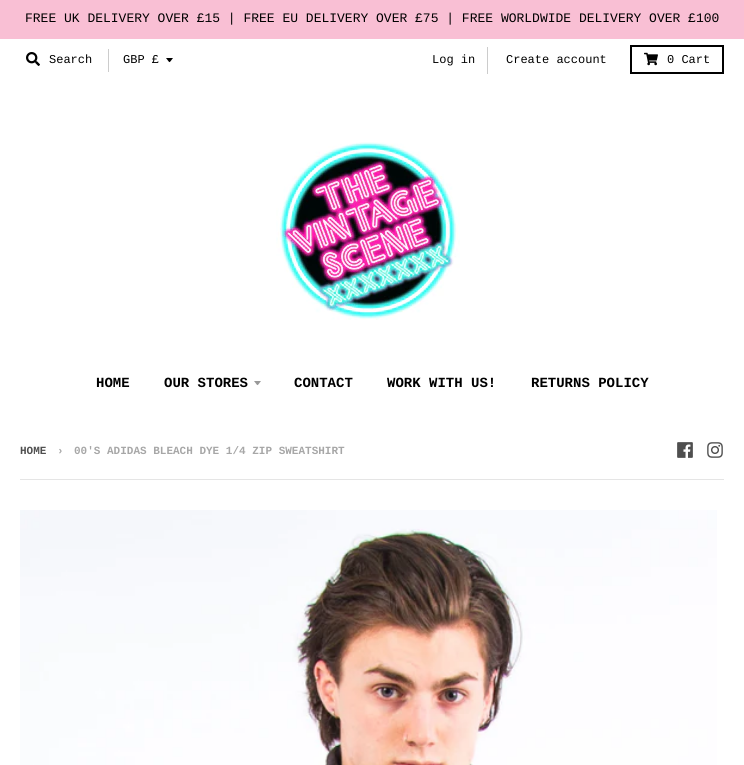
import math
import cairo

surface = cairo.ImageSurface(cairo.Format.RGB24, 744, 765)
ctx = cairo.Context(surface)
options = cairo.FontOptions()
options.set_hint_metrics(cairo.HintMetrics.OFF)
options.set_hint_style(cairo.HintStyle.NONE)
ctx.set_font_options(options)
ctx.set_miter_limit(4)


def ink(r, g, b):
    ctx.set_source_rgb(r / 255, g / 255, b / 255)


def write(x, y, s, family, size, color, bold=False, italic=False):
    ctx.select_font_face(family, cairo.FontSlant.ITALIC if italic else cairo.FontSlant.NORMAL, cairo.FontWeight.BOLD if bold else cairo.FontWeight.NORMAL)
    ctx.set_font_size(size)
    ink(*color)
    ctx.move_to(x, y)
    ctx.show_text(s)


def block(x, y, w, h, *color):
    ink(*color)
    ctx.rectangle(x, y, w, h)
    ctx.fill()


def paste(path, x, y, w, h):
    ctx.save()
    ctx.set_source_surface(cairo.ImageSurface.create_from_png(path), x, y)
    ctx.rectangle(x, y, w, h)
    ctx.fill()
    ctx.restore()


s1 = dict(family="Liberation Mono", size=13, color=(0, 0, 0))
s2 = dict(family="Liberation Mono", size=12, color=(0, 0, 0))
s3 = dict(family="Liberation Mono", size=14, color=(0, 0, 0), bold=True)
s4 = dict(family="Liberation Mono", size=11, color=(79, 79, 79), bold=True)
s5 = dict(family="Liberation Mono", size=11, color=(167, 167, 167), bold=True)

ink(255, 255, 255)
ctx.paint()
block(0, 0, 744, 39, 249, 191, 212)
write(25, 22, "FREE UK DELIVERY OVER £15 | FREE EU DELIVERY OVER £75 | FREE WORLDWIDE DELIVERY OVER £100", **s1)
paste("pic1.png", 26, 52, 14, 14)
write(49, 63, "Search", **s2)
block(108, 49, 1, 23, 204, 204, 204)
ink(0, 0, 0)
ctx.new_path()
ctx.move_to(166, 58)
ctx.curve_to(170.5, 63.5, 168.5, 63.5, 173, 58)
ctx.close_path()
ctx.fill()
write(123, 63, "GBP £", **s2)
block(487, 47, 1, 27, 204, 204, 204)
write(432, 63, "Log in", **s2)
write(506, 63, "Create account", **s2)
ctx.rectangle(631, 46, 92, 27)
ctx.stroke()
paste("pic2.png", 644, 52, 14, 14)
write(667, 63, "0 Cart", **s2)
paste("pic3.png", 276, 142, 184, 178)
write(96, 387, "HOME", **s3)
write(164, 387, "OUR STORES", **s3)
ink(153, 153, 153)
ctx.new_path()
ctx.move_to(254, 381)
ctx.curve_to(258.5, 386.5, 256.5, 386.5, 261, 381)
ctx.close_path()
ctx.fill()
write(294, 387, "CONTACT", **s3)
write(387, 387, "WORK WITH US!", **s3)
write(531, 387, "RETURNS POLICY", **s3)
write(20, 454, "HOME", **s4)
write(57, 454, "›", **s5)
write(74, 454, "00'S ADIDAS BLEACH DYE 1/4 ZIP SWEATSHIRT", **s5)
paste("pic4.png", 677, 442, 16, 16)
paste("pic5.png", 707, 442, 16, 16)
block(20, 479, 704, 1, 229, 229, 229)
paste("pic6.png", 20, 510, 697, 255)
surface.write_to_png("screenshot.png")
